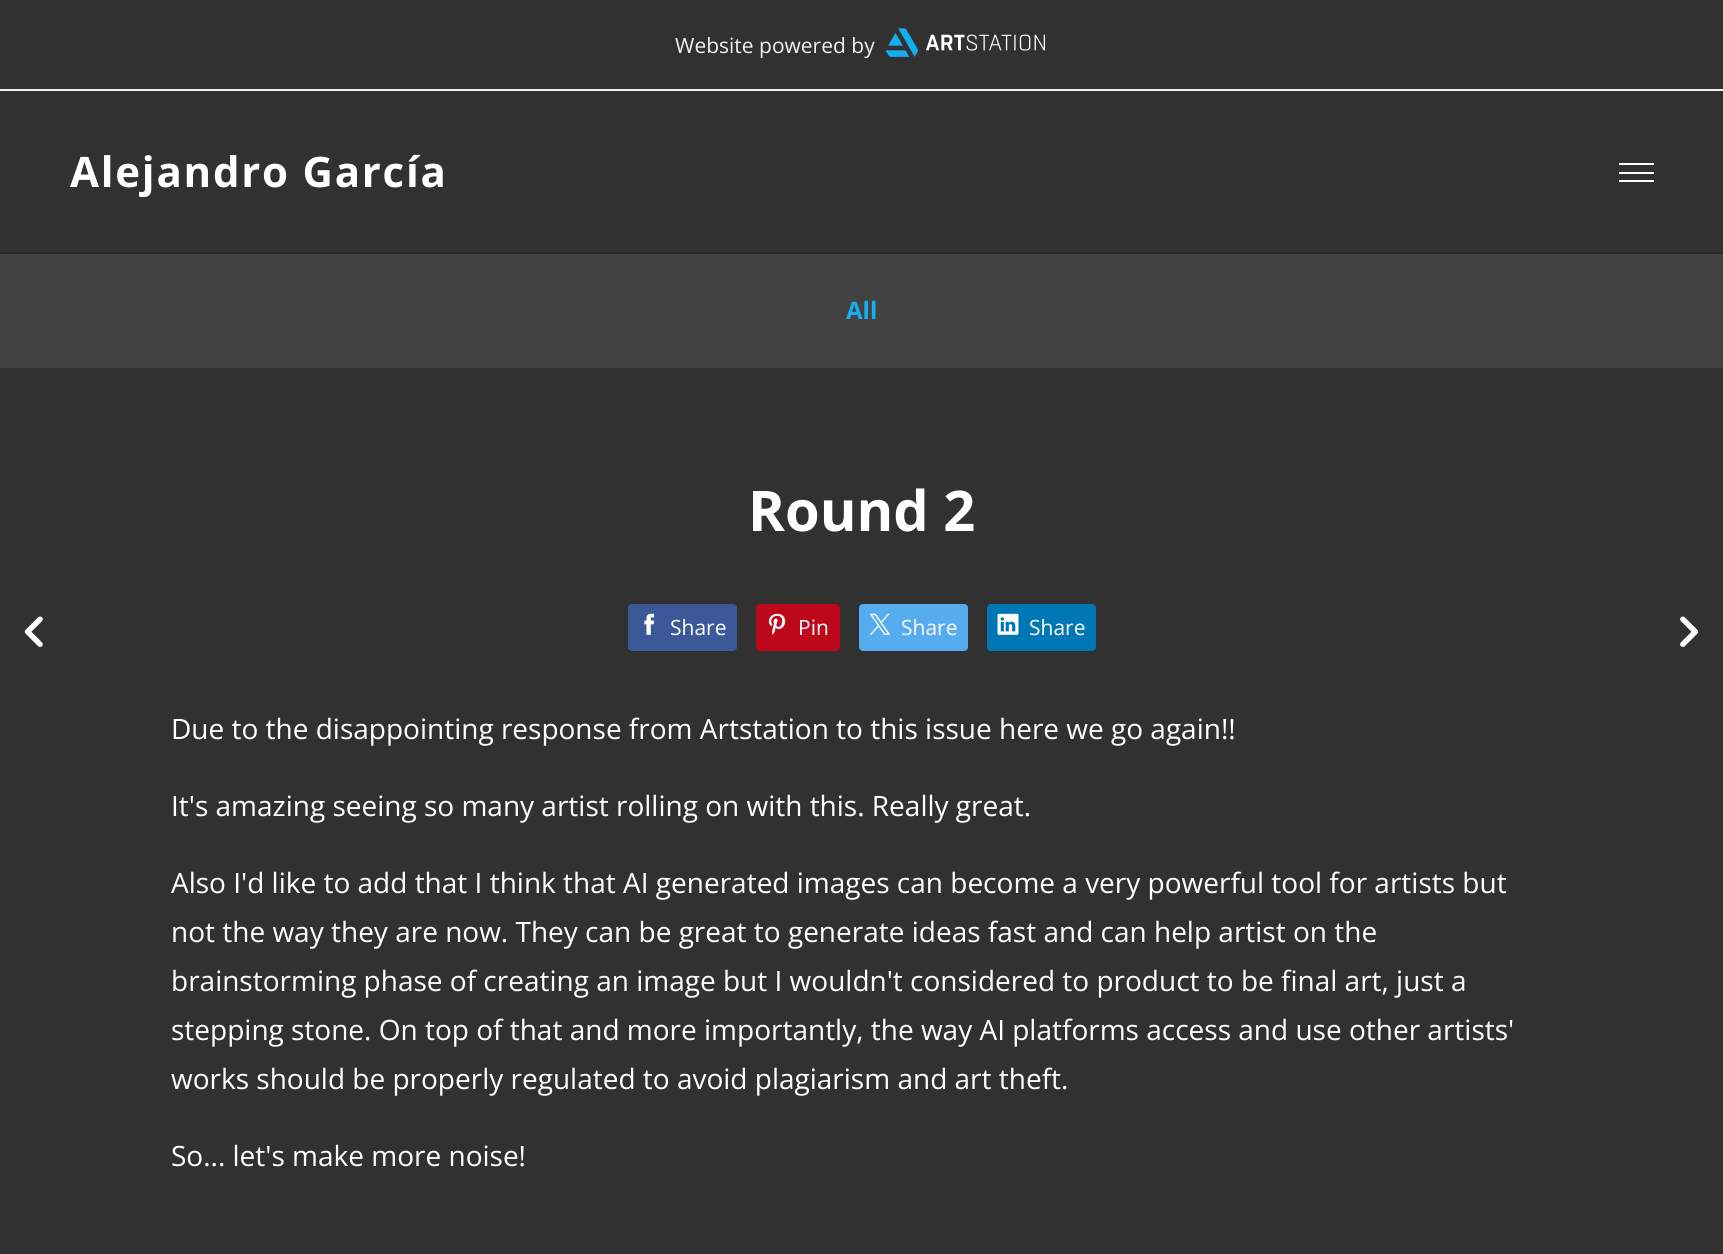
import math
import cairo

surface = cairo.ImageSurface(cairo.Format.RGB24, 1723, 1254)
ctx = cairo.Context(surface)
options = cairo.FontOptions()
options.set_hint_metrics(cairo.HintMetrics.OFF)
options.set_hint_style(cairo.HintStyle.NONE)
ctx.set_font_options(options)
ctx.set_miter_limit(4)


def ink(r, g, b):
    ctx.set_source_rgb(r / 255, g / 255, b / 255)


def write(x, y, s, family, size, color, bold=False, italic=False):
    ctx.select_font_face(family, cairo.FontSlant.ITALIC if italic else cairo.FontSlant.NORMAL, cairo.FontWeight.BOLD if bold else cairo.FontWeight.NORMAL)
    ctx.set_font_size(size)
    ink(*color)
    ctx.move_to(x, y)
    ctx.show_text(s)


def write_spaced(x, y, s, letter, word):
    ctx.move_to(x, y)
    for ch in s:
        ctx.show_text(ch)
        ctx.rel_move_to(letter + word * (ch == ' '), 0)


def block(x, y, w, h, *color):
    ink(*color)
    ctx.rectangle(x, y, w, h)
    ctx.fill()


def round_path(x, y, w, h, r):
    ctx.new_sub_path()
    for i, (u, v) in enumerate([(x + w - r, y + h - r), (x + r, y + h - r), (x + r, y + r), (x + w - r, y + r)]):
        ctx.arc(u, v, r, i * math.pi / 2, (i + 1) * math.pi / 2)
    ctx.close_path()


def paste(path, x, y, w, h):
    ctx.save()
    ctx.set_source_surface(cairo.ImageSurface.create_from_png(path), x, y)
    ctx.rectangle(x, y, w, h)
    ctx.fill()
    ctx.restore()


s1 = dict(family="Open Sans", size=21, color=(241, 241, 241))
s2 = dict(family="Open Sans", size=24, color=(19, 175, 240), bold=True)
s3 = dict(family="Open Sans", size=56, color=(255, 255, 255), bold=True)
s4 = dict(family="Open Sans", size=21, color=(255, 255, 255))
s5 = dict(family="Open Sans", size=28, color=(255, 255, 255))

ink(49, 49, 49)
ctx.paint()
block(0, 89, 1723, 2, 241, 241, 241)
write(675, 53, "Website powered by", **s1)
paste("pic1.png", 886, 28, 159, 29)
block(0, 252, 1723, 2, 41, 41, 41)
ctx.select_font_face("Open Sans", cairo.FontSlant.NORMAL, cairo.FontWeight.BOLD)
ctx.set_font_size(42)
ink(255, 255, 255)
write_spaced(70, 187, "Alejandro García", 1.75, 0)
block(1619, 163, 35, 2, 255, 255, 255)
block(1619, 172, 35, 2, 255, 255, 255)
block(1619, 180, 35, 2, 255, 255, 255)
block(0, 254, 1723, 114, 66, 66, 66)
write(846, 319, "All", **s2)
paste("pic2.png", 24, 616, 19, 31)
write(748, 531, "Round 2", **s3)
ink(59, 89, 153)
round_path(628, 604, 109, 47, 4)
ctx.fill()
paste("pic3.png", 644, 613, 11, 22)
write(670, 635, "Share", **s4)
ink(189, 8, 28)
round_path(756, 604, 84, 47, 4)
ctx.fill()
paste("pic4.png", 768, 613, 18, 22)
write(798, 635, "Pin", **s4)
ink(85, 172, 238)
round_path(859, 604, 109, 47, 4)
ctx.fill()
paste("pic5.png", 869, 613, 22, 22)
write(901, 635, "Share", **s4)
ink(0, 119, 181)
round_path(987, 604, 109, 47, 4)
ctx.fill()
paste("pic6.png", 997, 613, 22, 22)
write(1029, 635, "Share", **s4)
write(171, 739, "Due to the disappointing response from Artstation to this issue here we go again!!", **s5)
write(171, 816, "It's amazing seeing so many artist rolling on with this. Really great.", **s5)
write(171, 893, "Also I'd like to add that I think that AI generated images can become a very powerful tool for artists but", **s5)
write(171, 942, "not the way they are now. They can be great to generate ideas fast and can help artist on the", **s5)
write(171, 991, "brainstorming phase of creating an image but I wouldn't considered to product to be final art, just a", **s5)
write(171, 1040, "stepping stone. On top of that and more importantly, the way AI platforms access and use other artists'", **s5)
write(171, 1089, "works should be properly regulated to avoid plagiarism and art theft.", **s5)
write(171, 1166, "So... let's make more noise!", **s5)
paste("pic7.png", 1680, 616, 19, 31)
surface.write_to_png("screenshot.png")
